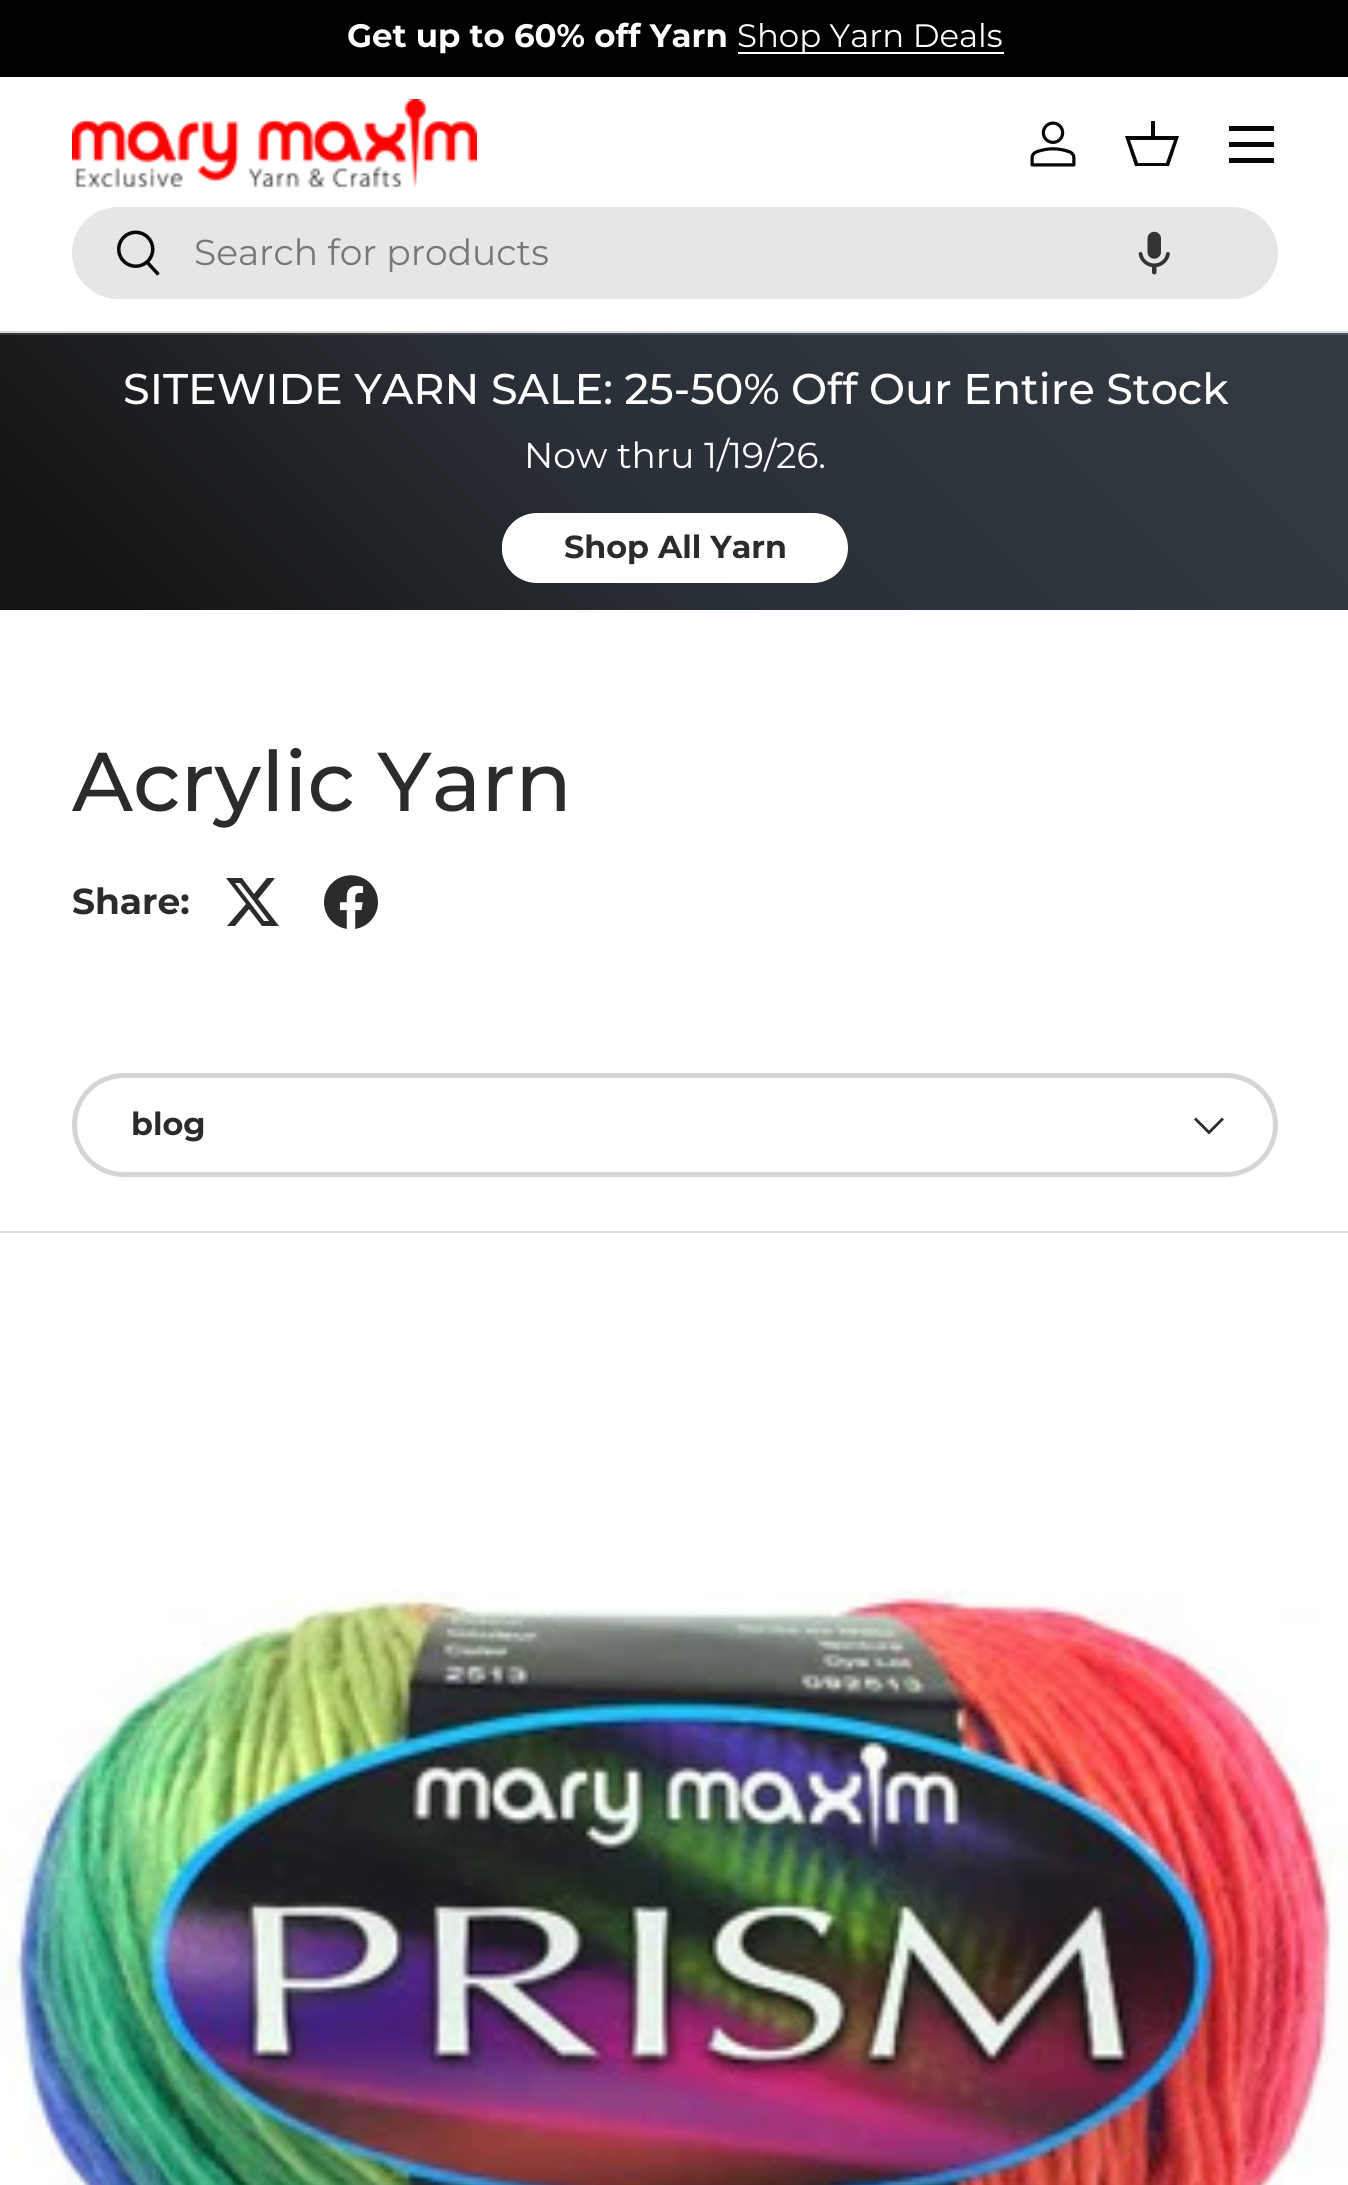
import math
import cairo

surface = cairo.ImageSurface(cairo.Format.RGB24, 1348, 2185)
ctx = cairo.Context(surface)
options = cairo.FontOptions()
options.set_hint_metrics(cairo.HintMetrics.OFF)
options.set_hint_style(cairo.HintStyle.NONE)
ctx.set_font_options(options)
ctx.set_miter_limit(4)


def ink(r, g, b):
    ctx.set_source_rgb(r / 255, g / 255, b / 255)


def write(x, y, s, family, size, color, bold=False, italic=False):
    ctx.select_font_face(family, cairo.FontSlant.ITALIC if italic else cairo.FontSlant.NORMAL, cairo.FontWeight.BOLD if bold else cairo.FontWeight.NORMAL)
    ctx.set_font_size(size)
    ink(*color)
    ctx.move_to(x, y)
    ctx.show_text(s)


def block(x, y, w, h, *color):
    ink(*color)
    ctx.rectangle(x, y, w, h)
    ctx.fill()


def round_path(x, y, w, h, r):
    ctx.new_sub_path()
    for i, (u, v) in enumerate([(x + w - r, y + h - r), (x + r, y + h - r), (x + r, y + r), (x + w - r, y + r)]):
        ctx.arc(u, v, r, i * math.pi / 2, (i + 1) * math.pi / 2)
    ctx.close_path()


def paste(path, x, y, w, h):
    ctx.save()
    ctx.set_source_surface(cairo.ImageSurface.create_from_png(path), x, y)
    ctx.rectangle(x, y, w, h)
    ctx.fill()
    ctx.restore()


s1 = dict(family="Montserrat", size=32.4, color=(255, 255, 255), bold=True)
s2 = dict(family="Montserrat", size=32.4, color=(255, 255, 255))
s3 = dict(family="Montserrat", size=36, color=(119, 119, 119))
s4 = dict(family="Montserrat Medium", size=42.9, color=(255, 255, 255))
s5 = dict(family="Montserrat", size=36, color=(255, 255, 255))
s6 = dict(family="Montserrat", size=31.75, color=(42, 43, 42), bold=True)
s7 = dict(family="Montserrat Medium", size=83.25, color=(42, 43, 42))
s8 = dict(family="Montserrat", size=36, color=(42, 43, 42), bold=True)

ink(255, 255, 255)
ctx.paint()
block(0, 0, 1348, 77, 0, 0, 0)
write(347, 47, "Get up to 60% off Yarn", **s1)
block(738, 52, 266, 2, 255, 255, 255)
write(737, 47, "Shop Yarn Deals", **s2)
block(0, 331, 1348, 2, 218, 218, 218)
paste("pic1.png", 72, 99, 405, 89)
paste("pic2.png", 1030, 121, 46, 46)
ink(7, 7, 7)
ctx.new_path()
ctx.move_to(1151, 136)
ctx.line_to(1151, 121)
ctx.line_to(1155, 121)
ctx.line_to(1155, 136)
ctx.line_to(1179, 136)
ctx.line_to(1169, 166)
ctx.line_to(1135, 166)
ctx.line_to(1125, 136)
ctx.close_path()
ctx.move_to(1130, 140)
ctx.line_to(1138, 163)
ctx.line_to(1166, 163)
ctx.line_to(1174, 140)
ctx.close_path()
ctx.fill()
block(1229, 126, 45, 5, 7, 7, 7)
block(1229, 158, 45, 5, 7, 7, 7)
block(1229, 142, 45, 5, 7, 7, 7)
ink(230, 230, 230)
round_path(72, 207, 1206, 92, 46)
ctx.fill()
paste("pic3.png", 117, 230, 43, 46)
write(194, 265, "Search for products", **s3)
paste("pic4.png", 1138, 231, 32, 44)
gradient = cairo.LinearGradient(1081, -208, 269, 604)
gradient.add_color_stop_rgba(0.08, 0.318, 0.341, 0.365, 1)
gradient.add_color_stop_rgba(0.56, 0.286, 0.306, 0.329, 1)
gradient.add_color_stop_rgba(0.92, 0.216, 0.216, 0.216, 1)
ctx.set_source(gradient)
ctx.rectangle(0, 333, 1348, 2)
ctx.fill()
gradient = cairo.LinearGradient(1081, 66, 269, 879)
gradient.add_color_stop_rgba(0.08, 0.196, 0.224, 0.251, 1)
gradient.add_color_stop_rgba(0.56, 0.161, 0.184, 0.212, 1)
gradient.add_color_stop_rgba(0.92, 0.078, 0.078, 0.078, 1)
ctx.set_source(gradient)
ctx.rectangle(0, 335, 1348, 275)
ctx.fill()
write(123, 404, "SITEWIDE YARN SALE: 25-50% Off Our Entire Stock", **s4)
write(524, 468, "Now thru 1/19/26.", **s5)
ctx.save()
round_path(502, 513, 346, 70, 35)
ctx.clip()
gradient = cairo.LinearGradient(-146, 427, 821, 668)
gradient.add_color_stop_rgba(0.6, 0.906, 0.906, 0.906, 1)
gradient.add_color_stop_rgba(0.6, 1, 1, 1, 1)
gradient.add_color_stop_rgba(1, 1, 1, 1, 1)
ctx.set_source(gradient)
ctx.rectangle(502, 518, 342, 60)
ctx.fill()
ctx.restore()
round_path(504.5, 515.5, 341, 65, 32.5)
ctx.set_line_width(5)
ctx.stroke()
write(564, 558, "Shop All Yarn", **s6)
write(72, 811, "Acrylic Yarn", **s7)
write(72, 914, "Share:", **s8)
ctx.new_path()
ctx.move_to(267, 878)
ctx.line_to(275, 878)
ctx.line_to(258, 899)
ctx.line_to(279, 926)
ctx.line_to(262, 926)
ctx.line_to(249, 909)
ctx.line_to(235, 926)
ctx.line_to(227, 926)
ctx.line_to(246, 904)
ctx.line_to(226, 878)
ctx.line_to(242, 878)
ctx.line_to(254, 894)
ctx.close_path()
ctx.move_to(264, 921)
ctx.line_to(269, 921)
ctx.line_to(240, 883)
ctx.line_to(235, 883)
ctx.close_path()
ctx.fill()
paste("pic5.png", 324, 875, 54, 54)
round_path(74.5, 1075.5, 1201, 99, 49.5)
ink(212, 213, 212)
ctx.stroke()
write(131, 1135, "blog", **s6)
ctx.new_path()
ctx.move_to(1223, 1118.5)
ctx.line_to(1209, 1132.5)
ctx.line_to(1195, 1118.5)
ctx.set_line_width(2.8)
ctx.stroke()
block(0, 1231, 1348, 2, 223, 223, 223)
paste("pic6.png", 0, 1590, 1348, 595)
surface.write_to_png("screenshot.png")
